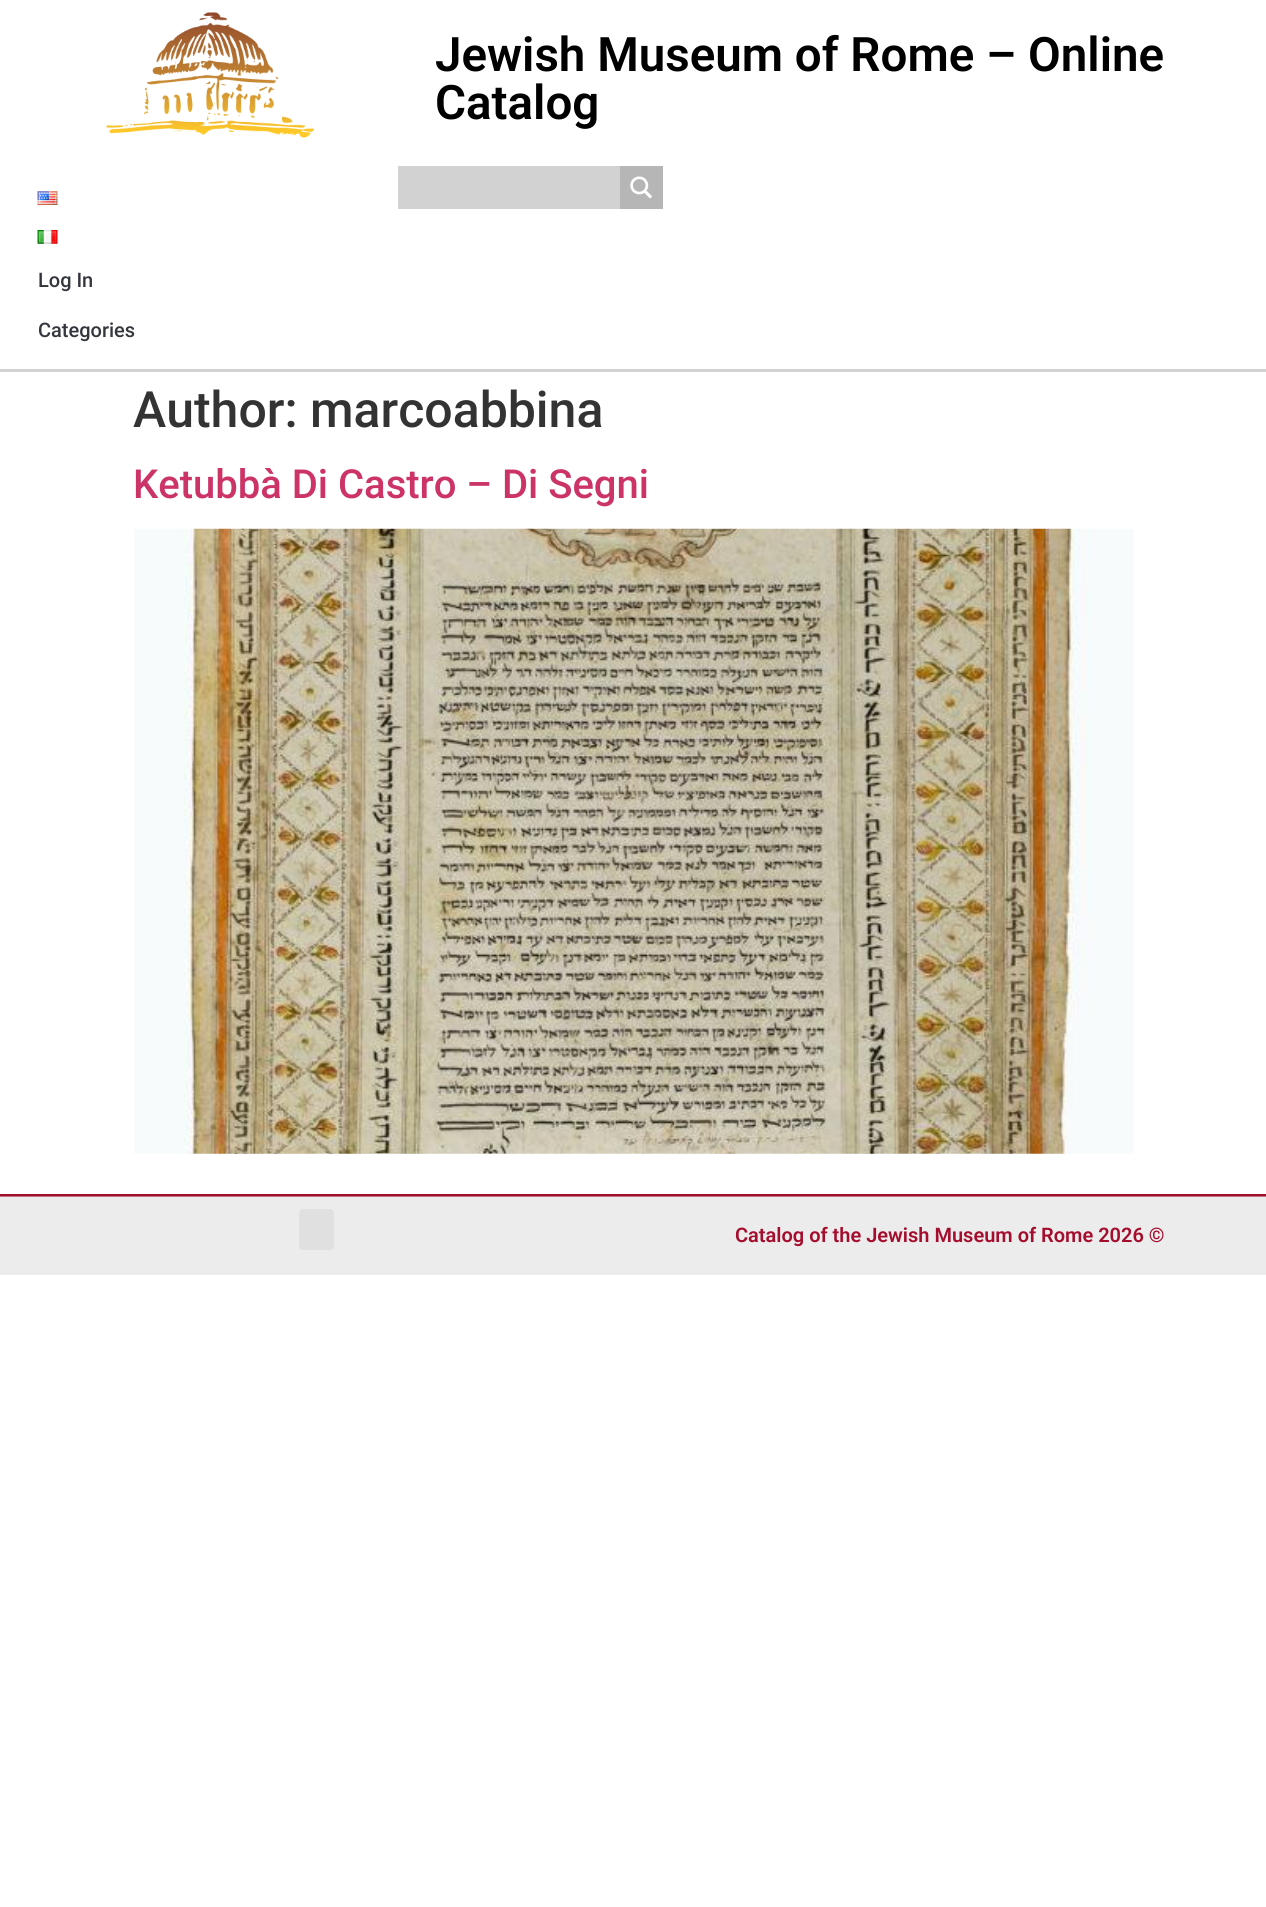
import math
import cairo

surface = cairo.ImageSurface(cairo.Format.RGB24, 1266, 1907)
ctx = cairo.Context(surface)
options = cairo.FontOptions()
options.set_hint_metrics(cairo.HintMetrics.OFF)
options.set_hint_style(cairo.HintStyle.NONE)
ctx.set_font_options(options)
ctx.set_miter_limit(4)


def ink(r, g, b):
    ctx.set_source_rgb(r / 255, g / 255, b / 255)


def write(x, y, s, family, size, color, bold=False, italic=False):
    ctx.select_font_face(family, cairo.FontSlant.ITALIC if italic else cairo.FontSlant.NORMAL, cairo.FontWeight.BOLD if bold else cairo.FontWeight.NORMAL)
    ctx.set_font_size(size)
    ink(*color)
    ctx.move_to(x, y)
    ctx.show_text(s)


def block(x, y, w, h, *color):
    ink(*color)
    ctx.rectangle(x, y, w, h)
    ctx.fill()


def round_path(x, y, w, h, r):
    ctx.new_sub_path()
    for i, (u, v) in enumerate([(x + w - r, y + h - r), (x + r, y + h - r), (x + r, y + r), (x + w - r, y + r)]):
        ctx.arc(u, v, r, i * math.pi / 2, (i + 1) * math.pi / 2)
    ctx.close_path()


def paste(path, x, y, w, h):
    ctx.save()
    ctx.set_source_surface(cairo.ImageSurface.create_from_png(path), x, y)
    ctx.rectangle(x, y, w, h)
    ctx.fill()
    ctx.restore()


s1 = dict(family="Roboto SemiBold", size=47.5, color=(0, 0, 0))
s2 = dict(family="Roboto Medium", size=20, color=(51, 55, 61))
s3 = dict(family="Roboto Medium", size=50, color=(51, 51, 51))
s4 = dict(family="Roboto Medium", size=40, color=(204, 51, 102))
s5 = dict(family="Roboto SemiBold", size=20, color=(164, 13, 45))

ink(255, 255, 255)
ctx.paint()
block(0, 1197, 1266, 78, 237, 236, 236)
paste("pic1.png", 106, 12, 209, 126)
write(435, 71, "Jewish Museum of Rome – Online", **s1)
write(435, 119, "Catalog", **s1)
block(0, 369, 1266, 3, 210, 210, 210)
block(398, 166, 222, 43, 210, 210, 210)
block(620, 166, 43, 43, 182, 182, 182)
paste("pic2.png", 630, 176, 22, 23)
paste("pic3.png", 37, 191, 21, 14)
paste("pic4.png", 37, 230, 21, 14)
write(38, 287, "Log In", **s2)
write(38, 337, "Categories", **s2)
write(133, 427, "Author: marcoabbina", **s3)
write(133, 498, "Ketubbà Di Castro – Di Segni", **s4)
paste("pic5.png", 134, 528, 1000, 626)
block(0, 1194, 1266, 2, 164, 13, 45)
block(0, 1196, 1266, 1, 191, 115, 131)
ink(225, 224, 224)
round_path(299, 1209, 35, 41, 4)
ctx.fill()
write(735, 1242, "Catalog of the Jewish Museum of Rome 2026 ©", **s5)
surface.write_to_png("screenshot.png")
